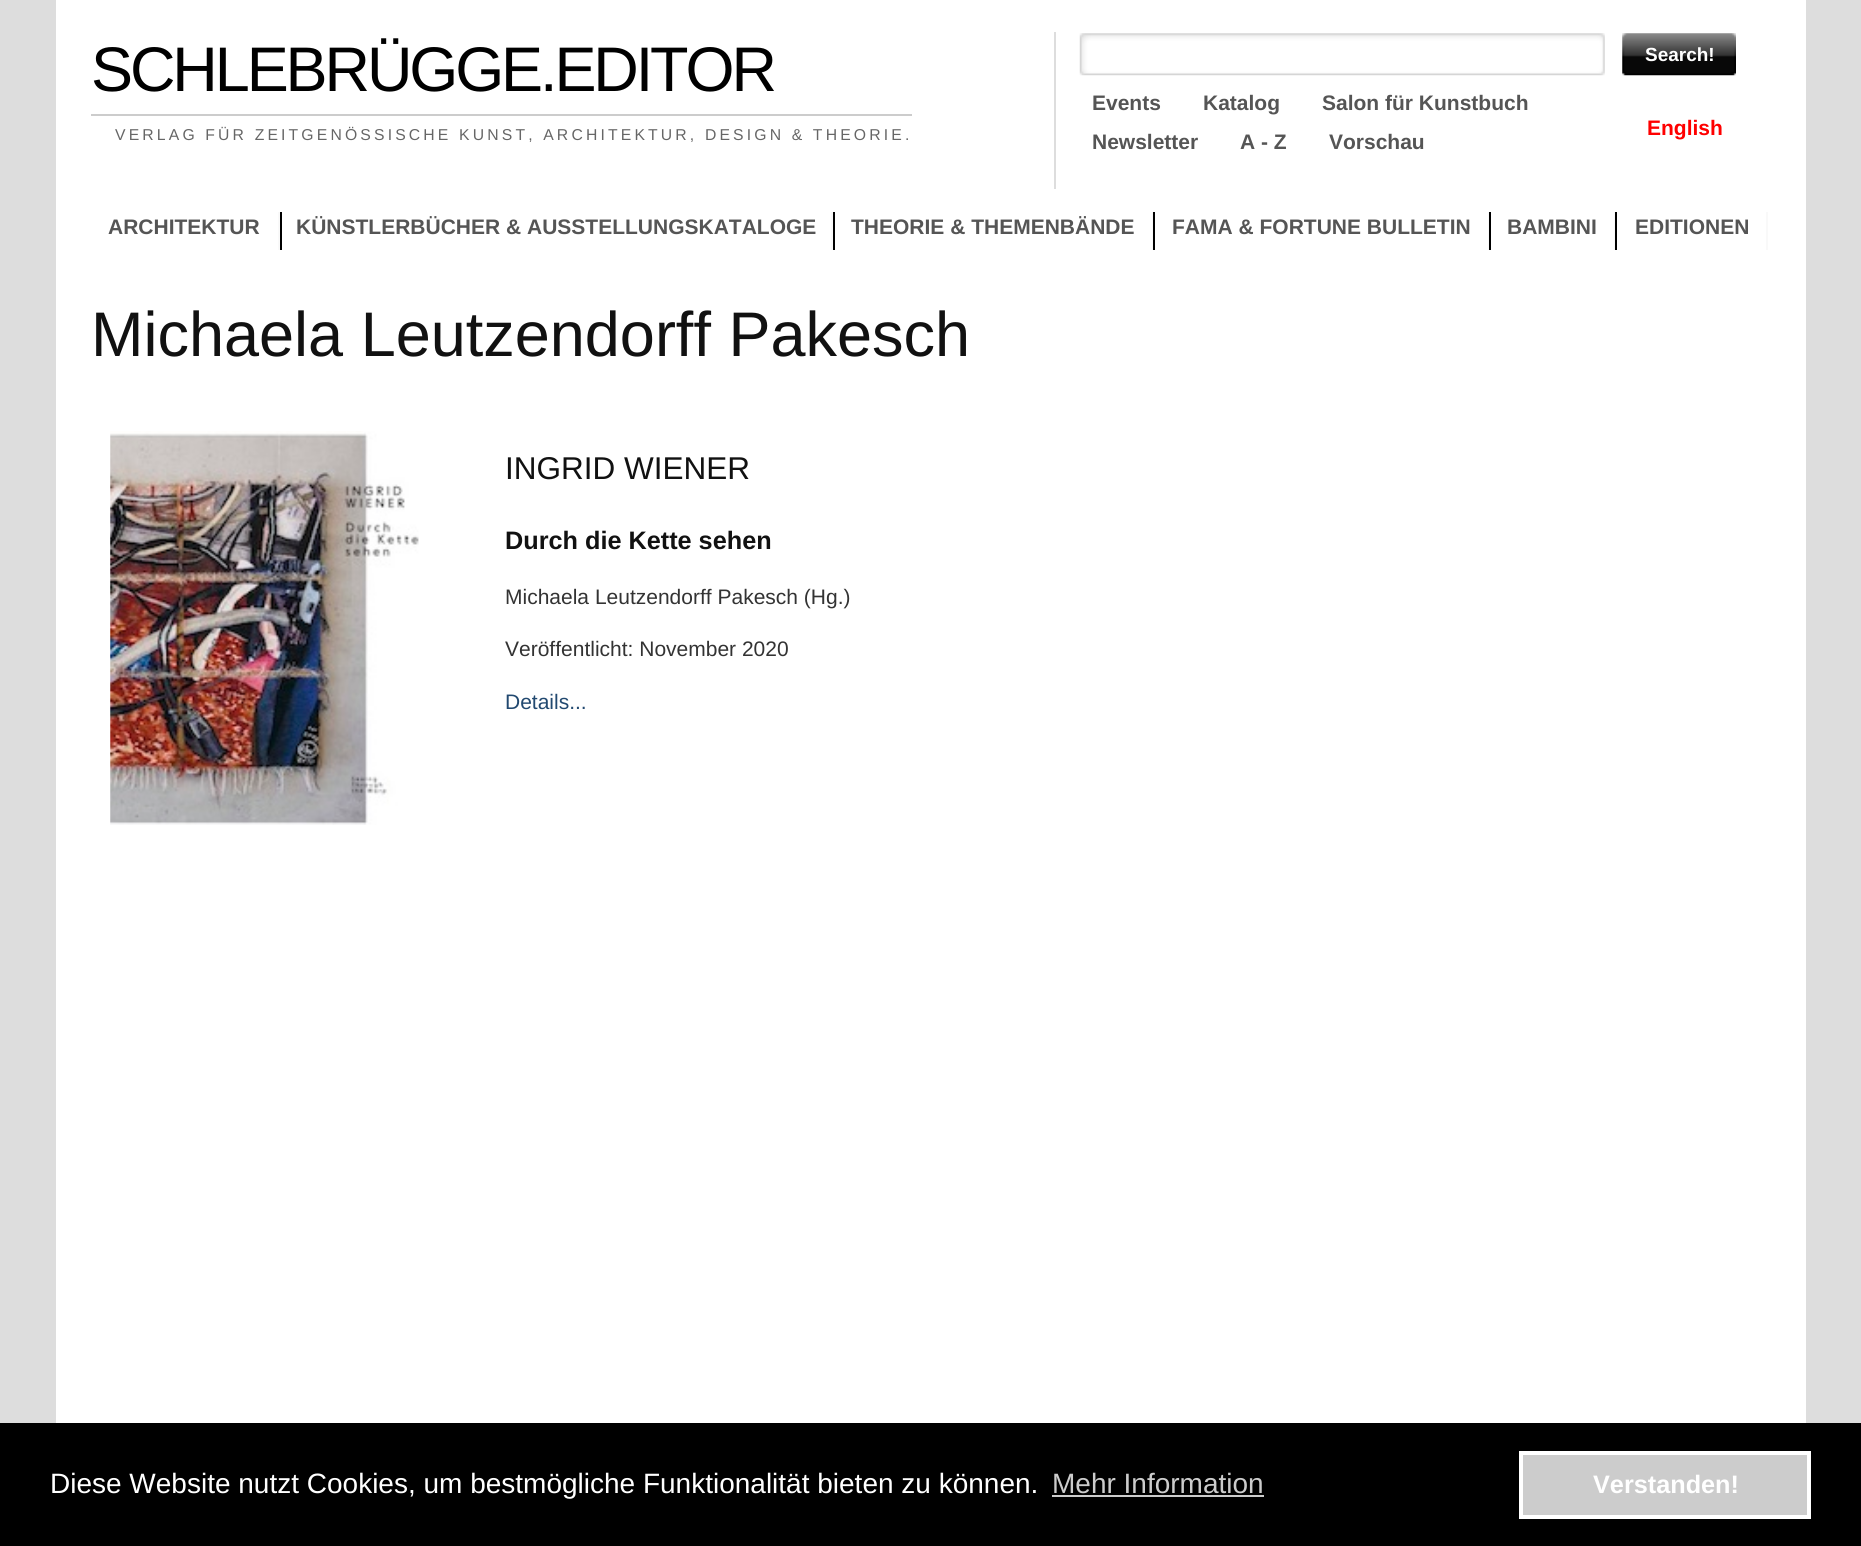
import math
import cairo

surface = cairo.ImageSurface(cairo.Format.RGB24, 1861, 1546)
ctx = cairo.Context(surface)
options = cairo.FontOptions()
options.set_hint_metrics(cairo.HintMetrics.OFF)
options.set_hint_style(cairo.HintStyle.NONE)
ctx.set_font_options(options)
ctx.set_miter_limit(4)


def ink(r, g, b):
    ctx.set_source_rgb(r / 255, g / 255, b / 255)


def write(x, y, s, family, size, color, bold=False, italic=False):
    ctx.select_font_face(family, cairo.FontSlant.ITALIC if italic else cairo.FontSlant.NORMAL, cairo.FontWeight.BOLD if bold else cairo.FontWeight.NORMAL)
    ctx.set_font_size(size)
    ink(*color)
    ctx.move_to(x, y)
    ctx.show_text(s)


def write_spaced(x, y, s, letter, word):
    ctx.move_to(x, y)
    for ch in s:
        ctx.show_text(ch)
        ctx.rel_move_to(letter + word * (ch == ' '), 0)


def block(x, y, w, h, *color):
    ink(*color)
    ctx.rectangle(x, y, w, h)
    ctx.fill()


def paste(path, x, y, w, h):
    ctx.save()
    ctx.set_source_surface(cairo.ImageSurface.create_from_png(path), x, y)
    ctx.rectangle(x, y, w, h)
    ctx.fill()
    ctx.restore()


s1 = dict(family="Liberation Sans", size=19, color=(255, 255, 255), bold=True)
s2 = dict(family="Liberation Sans", size=21, color=(85, 85, 85), bold=True)
s3 = dict(family="Liberation Sans", size=21, color=(255, 0, 0), bold=True)
s4 = dict(family="Liberation Sans", size=63, color=(17, 17, 17))
s5 = dict(family="Liberation Sans", size=31.5, color=(17, 17, 17))
s6 = dict(family="Liberation Sans", size=25.25, color=(17, 17, 17), bold=True)
s7 = dict(family="Liberation Sans", size=21, color=(51, 51, 51))
s8 = dict(family="Liberation Sans", size=21, color=(34, 73, 112))
s9 = dict(family="Liberation Sans", size=28, color=(255, 255, 255))
s10 = dict(family="Liberation Sans", size=28, color=(204, 204, 204))
s11 = dict(family="Liberation Sans", size=25.25, color=(255, 255, 255), bold=True)

ink(221, 221, 221)
ctx.paint()
block(56, 0, 1750, 1423, 255, 255, 255)
ctx.select_font_face("Liberation Sans")
ctx.set_font_size(63)
ink(0, 0, 0)
write_spaced(91, 91, "SCHLEBRÜGGE.EDITOR", -3.1, 0)
block(91, 114, 821, 2, 204, 204, 204)
ctx.set_font_size(15.75)
ink(102, 102, 102)
write_spaced(115, 140, "VERLAG FÜR ZEITGENÖSSISCHE KUNST, ARCHITEKTUR, DESIGN & THEORIE.", 3.15, 0)
block(1054, 32, 2, 157, 221, 221, 221)
paste("pic1.png", 1079, 33, 526, 43)
paste("pic2.png", 1622, 33, 114, 43)
write(1645, 61, "Search!", **s1)
write(1092, 110, "Events", **s2)
write(1203, 110, "Katalog", **s2)
write(1322, 110, "Salon für Kunstbuch", **s2)
write(1092, 149, "Newsletter", **s2)
write(1240, 149, "A - Z", **s2)
write(1329, 149, "Vorschau", **s2)
write(1647, 135, "English", **s3)
block(278, 212, 2, 38, 249, 249, 249)
write(108, 234, "ARCHITEKTUR", **s2)
block(831, 212, 2, 38, 249, 249, 249)
block(280, 212, 2, 38, 0, 0, 0)
write(296, 234, "KÜNSTLERBÜCHER & AUSSTELLUNGSKATALOGE", **s2)
block(1152, 212, 1, 38, 249, 249, 249)
block(833, 212, 2, 38, 0, 0, 0)
write(851, 234, "THEORIE & THEMENBÄNDE", **s2)
block(1488, 212, 1, 38, 249, 249, 249)
block(1153, 212, 2, 38, 0, 0, 0)
write(1172, 234, "FAMA & FORTUNE BULLETIN", **s2)
block(1614, 212, 1, 38, 249, 249, 249)
block(1489, 212, 2, 38, 0, 0, 0)
write(1507, 234, "BAMBINI", **s2)
block(1766, 212, 2, 38, 249, 249, 249)
block(1615, 212, 2, 38, 0, 0, 0)
write(1635, 234, "EDITIONEN", **s2)
write(91, 356, "Michaela Leutzendorff Pakesch", **s4)
paste("pic3.png", 110, 431, 309, 394)
write(505, 479, "INGRID WIENER", **s5)
write(505, 549, "Durch die Kette sehen", **s6)
write(505, 604, "Michaela Leutzendorff Pakesch (Hg.)", **s7)
write(505, 656, "Veröffentlicht: November 2020", **s7)
write(505, 709, "Details...", **s8)
block(0, 1423, 1861, 123, 0, 0, 0)
write(50, 1493, "Diese Website nutzt Cookies, um bestmögliche Funktionalität bieten zu können.", **s9)
write(1052, 1493, "Mehr Information", **s10)
block(1052, 1495, 212, 2, 204, 204, 204)
ctx.rectangle(1521, 1453, 288, 64)
ctx.fill_preserve()
ink(255, 255, 255)
ctx.set_line_width(4)
ctx.stroke()
write(1593, 1493, "Verstanden!", **s11)
surface.write_to_png("screenshot.png")
